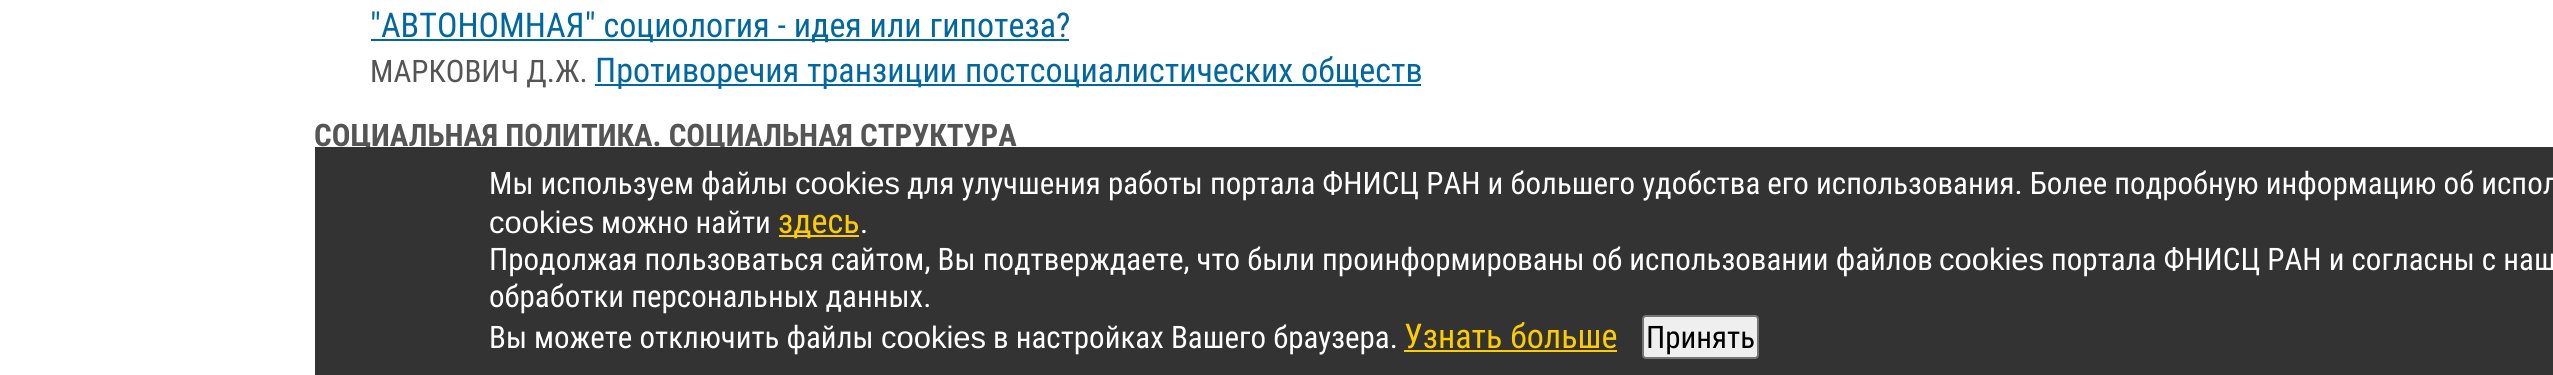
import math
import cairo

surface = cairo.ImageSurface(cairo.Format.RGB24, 2553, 375)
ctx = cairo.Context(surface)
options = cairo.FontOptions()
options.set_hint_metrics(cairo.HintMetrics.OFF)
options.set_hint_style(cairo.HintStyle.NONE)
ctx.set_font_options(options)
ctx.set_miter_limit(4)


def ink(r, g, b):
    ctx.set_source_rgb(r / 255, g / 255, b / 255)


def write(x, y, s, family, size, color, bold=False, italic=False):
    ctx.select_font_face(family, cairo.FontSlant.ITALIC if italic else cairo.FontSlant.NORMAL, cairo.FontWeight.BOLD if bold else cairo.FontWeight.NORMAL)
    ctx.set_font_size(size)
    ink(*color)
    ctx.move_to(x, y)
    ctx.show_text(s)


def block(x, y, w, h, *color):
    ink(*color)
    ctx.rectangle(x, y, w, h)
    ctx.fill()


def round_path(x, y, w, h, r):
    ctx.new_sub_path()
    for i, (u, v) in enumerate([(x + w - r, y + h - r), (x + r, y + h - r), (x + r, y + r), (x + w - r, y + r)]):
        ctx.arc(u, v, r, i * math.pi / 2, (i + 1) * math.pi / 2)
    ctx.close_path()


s1 = dict(family="Roboto Condensed", size=34.1, color=(0, 103, 161))
s2 = dict(family="Roboto Condensed", size=31, color=(85, 85, 85))
s3 = dict(family="Roboto Condensed", size=31, color=(85, 85, 85), bold=True)
s4 = dict(family="Roboto Condensed", size=31, color=(255, 255, 255))
s5 = dict(family="Liberation Sans", size=31, color=(255, 255, 255))
s6 = dict(family="Roboto Condensed", size=34.1, color=(255, 204, 0))
s7 = dict(family="Roboto Condensed", size=31, color=(0, 0, 0))

ink(255, 255, 255)
ctx.paint()
block(371, 39, 698, 2, 0, 103, 161)
write(370, 37, "\"АВТОНОМНАЯ\" социология - идея или гипотеза?", **s1)
write(370, 82, "МАРКОВИЧ Д.Ж.", **s2)
block(595, 84, 826, 2, 0, 103, 161)
write(595, 82, "Противоречия транзиции постсоциалистических обществ", **s1)
write(314, 146, "СОЦИАЛЬНАЯ ПОЛИТИКА. СОЦИАЛЬНАЯ СТРУКТУРА", **s3)
block(315, 147, 2238, 228, 51, 51, 51)
write(489, 194, "Мы используем файлы", **s4)
write(795, 194, "cookies", **s5)
write(907, 194, "для улучшения работы портала ФНИСЦ РАН и большего удобства его использования. Более подробную информацию об испол", **s4)
write(489, 233, "cookies", **s5)
write(601, 233, "можно найти", **s4)
block(779, 235, 80, 2, 255, 204, 0)
write(778, 233, "здесь", **s6)
write(860, 233, ".", **s4)
write(489, 270, "Продолжая пользоваться сайтом, Вы подтверждаете, что были проинформированы об использовании файлов", **s4)
write(1939, 270, "cookies", **s5)
write(2051, 270, "портала ФНИСЦ РАН и согласны с наш", **s4)
write(489, 307, "обработки персональных данных.", **s4)
write(489, 348, "Вы можете отключить файлы", **s4)
write(881, 348, "cookies", **s5)
write(993, 348, "в настройках Вашего браузера.", **s4)
write(1404, 348, "Узнать больше", **s6)
block(1404, 350, 213, 2, 255, 204, 0)
ink(239, 239, 239)
round_path(1643, 316, 115, 42, 3)
ctx.fill_preserve()
ink(118, 118, 118)
ctx.stroke()
write(1646, 348, "Принять", **s7)
surface.write_to_png("screenshot.png")
